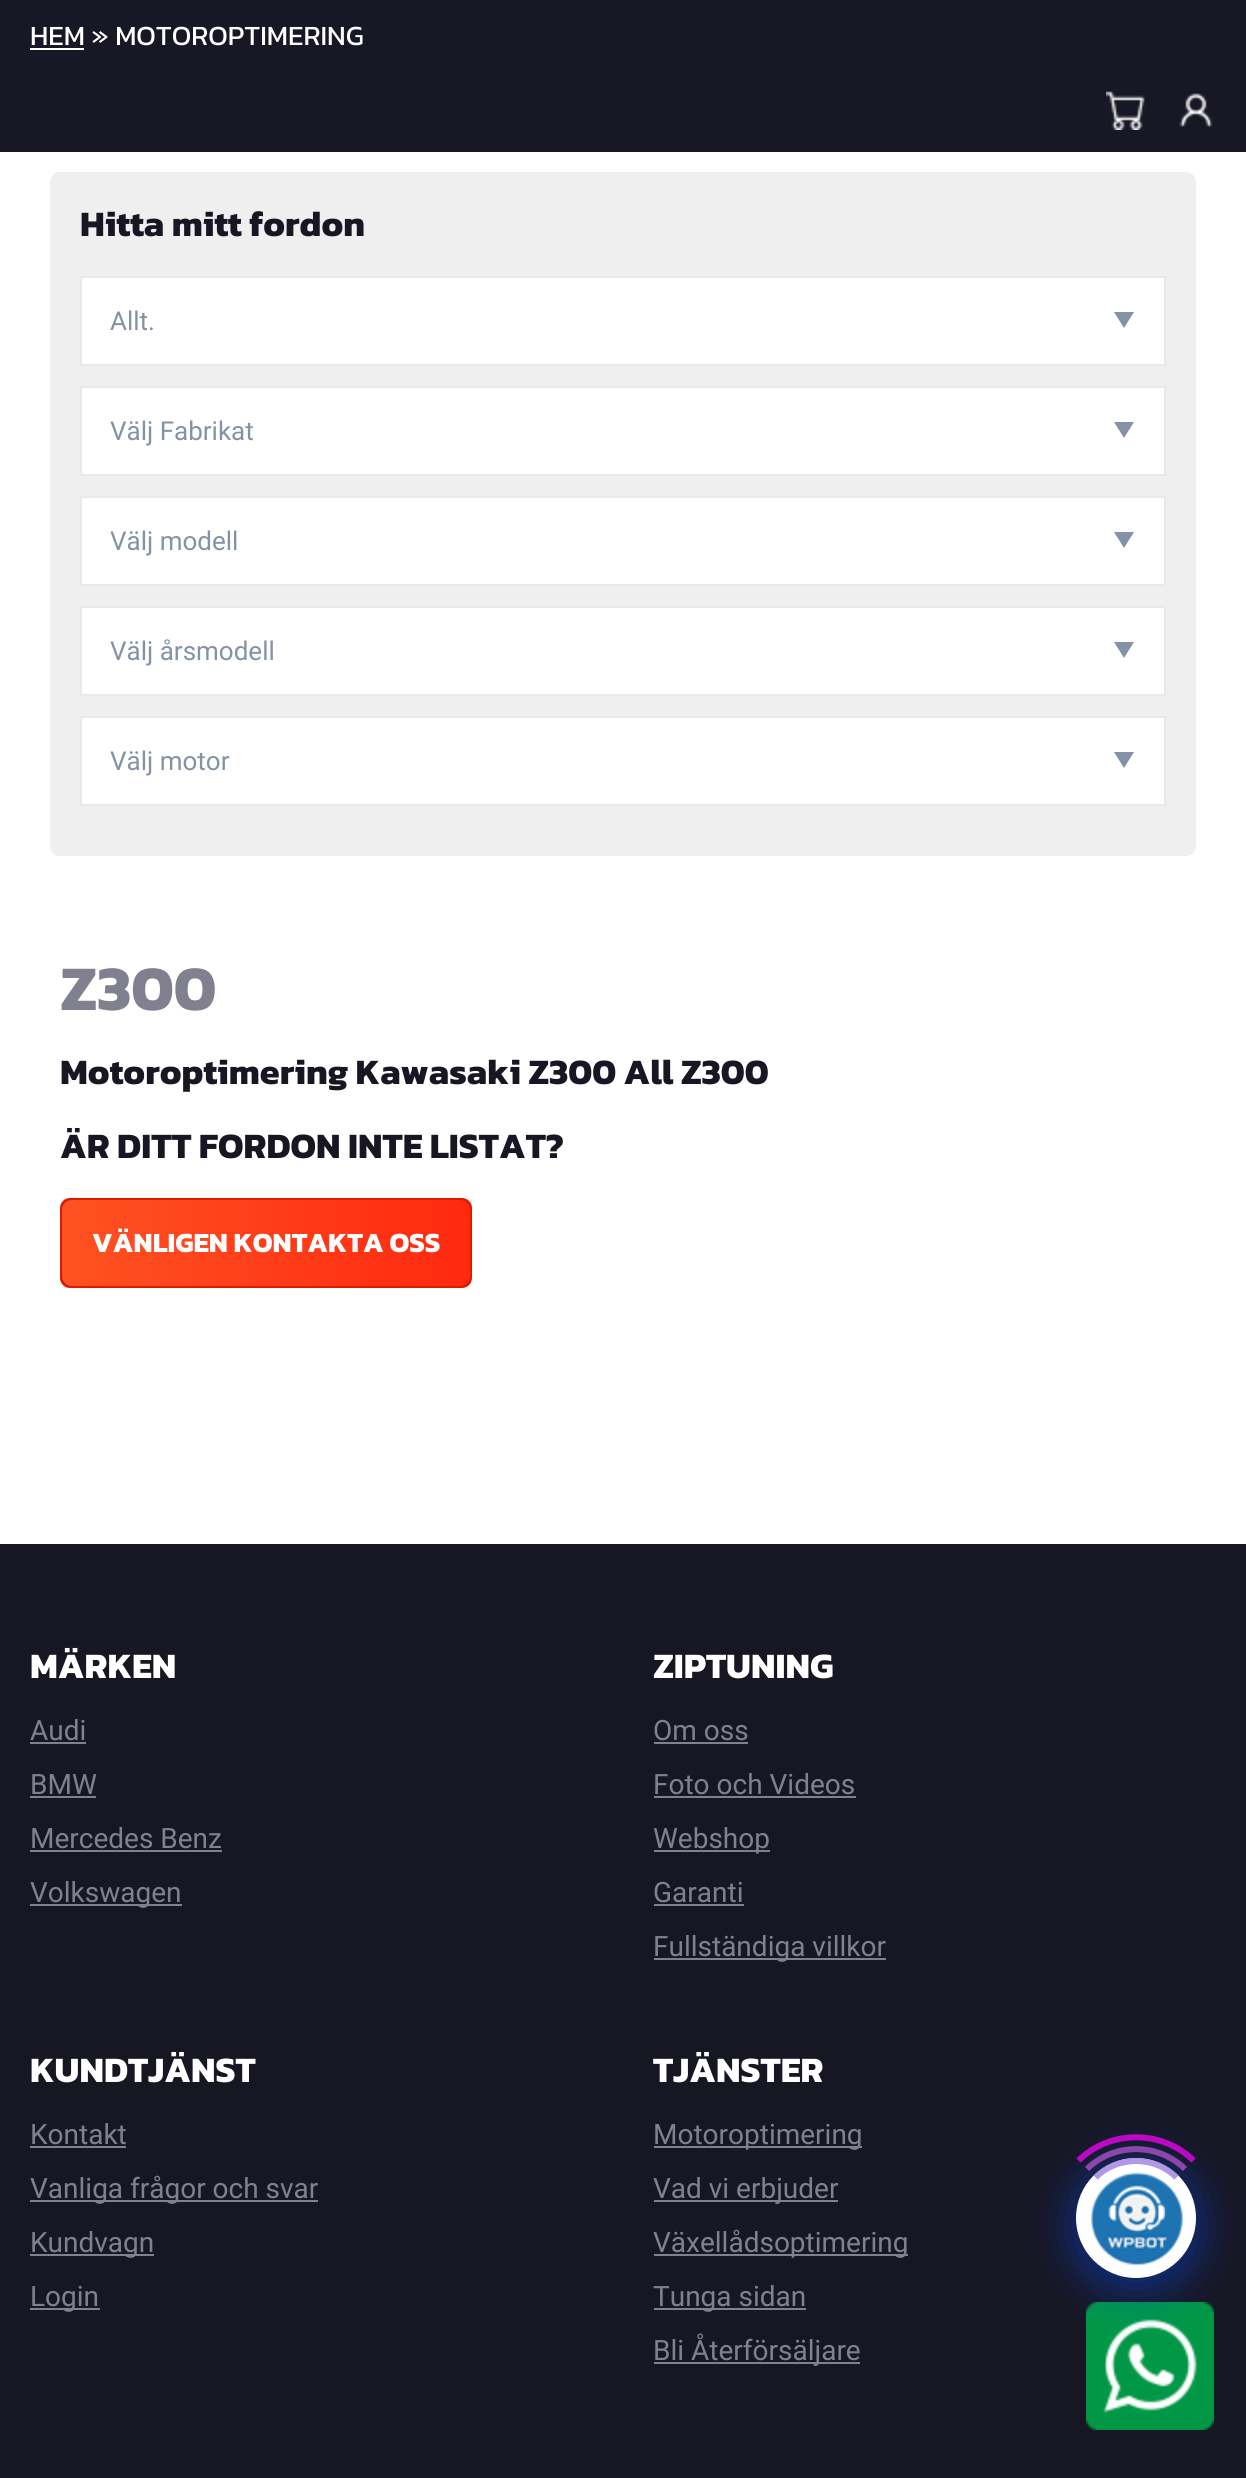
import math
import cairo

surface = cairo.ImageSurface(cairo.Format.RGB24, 1246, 2478)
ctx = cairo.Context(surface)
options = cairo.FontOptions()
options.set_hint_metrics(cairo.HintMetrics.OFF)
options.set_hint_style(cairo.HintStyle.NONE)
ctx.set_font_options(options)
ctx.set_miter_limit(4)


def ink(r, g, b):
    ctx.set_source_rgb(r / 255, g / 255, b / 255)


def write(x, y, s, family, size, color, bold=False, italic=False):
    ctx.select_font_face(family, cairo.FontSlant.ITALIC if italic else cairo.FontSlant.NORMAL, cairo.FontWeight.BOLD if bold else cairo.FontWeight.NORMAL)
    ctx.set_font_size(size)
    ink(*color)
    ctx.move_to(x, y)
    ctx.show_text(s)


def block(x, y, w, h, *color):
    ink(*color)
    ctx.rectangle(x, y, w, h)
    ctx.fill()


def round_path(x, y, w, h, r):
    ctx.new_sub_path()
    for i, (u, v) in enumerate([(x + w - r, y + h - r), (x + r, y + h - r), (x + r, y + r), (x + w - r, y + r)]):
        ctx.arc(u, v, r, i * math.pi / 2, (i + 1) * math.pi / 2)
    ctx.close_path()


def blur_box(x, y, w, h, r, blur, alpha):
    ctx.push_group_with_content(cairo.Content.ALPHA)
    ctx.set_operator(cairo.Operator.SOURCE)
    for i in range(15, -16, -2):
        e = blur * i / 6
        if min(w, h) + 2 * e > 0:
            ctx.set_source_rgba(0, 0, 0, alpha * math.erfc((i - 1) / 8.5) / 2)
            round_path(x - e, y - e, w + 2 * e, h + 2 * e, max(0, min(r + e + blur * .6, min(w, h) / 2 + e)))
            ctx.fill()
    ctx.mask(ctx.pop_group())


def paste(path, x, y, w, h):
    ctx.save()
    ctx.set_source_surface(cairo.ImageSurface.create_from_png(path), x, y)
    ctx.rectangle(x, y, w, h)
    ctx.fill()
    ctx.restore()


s1 = dict(family="Kanit", size=28, color=(255, 255, 255))
s2 = dict(family="Kanit", size=36, color=(23, 23, 36), bold=True)
s3 = dict(family="Roboto", size=26, color=(132, 146, 166))
s4 = dict(family="Kanit", size=64, color=(128, 128, 143), bold=True)
s5 = dict(family="Kanit", size=28, color=(255, 255, 255), bold=True)
s6 = dict(family="Kanit", size=36, color=(255, 255, 255), bold=True)
s7 = dict(family="Roboto", size=28, color=(128, 128, 143))

ink(255, 255, 255)
ctx.paint()
block(0, 0, 1246, 8, 23, 23, 36)
block(0, 8, 1246, 144, 23, 23, 37)
write(30, 45, "HEM » MOTOROPTIMERING", **s1)
block(30, 48, 54, 2, 255, 255, 255)
paste("pic1.png", 1106, 91, 39, 39)
paste("pic2.png", 1179, 93, 34, 34)
ink(239, 239, 239)
round_path(50, 172, 1146, 684, 10)
ctx.fill()
write(80, 236, "Hitta mitt fordon", **s2)
ink(255, 255, 255)
ctx.rectangle(81, 277, 1084, 88)
ctx.fill_preserve()
ink(233, 233, 237)
ctx.stroke()
write(110, 330, "Allt.", **s3)
ctx.new_path()
ctx.move_to(1114, 312)
ctx.line_to(1134, 312)
ctx.line_to(1124, 328)
ctx.close_path()
ctx.fill()
ink(255, 255, 255)
ctx.rectangle(81, 387, 1084, 88)
ctx.fill_preserve()
ink(233, 233, 237)
ctx.stroke()
write(110, 440, "Välj Fabrikat", **s3)
ctx.new_path()
ctx.move_to(1114, 422)
ctx.line_to(1134, 422)
ctx.line_to(1124, 438)
ctx.close_path()
ctx.fill()
ink(255, 255, 255)
ctx.rectangle(81, 497, 1084, 88)
ctx.fill_preserve()
ink(233, 233, 237)
ctx.stroke()
write(110, 550, "Välj modell", **s3)
ctx.new_path()
ctx.move_to(1114, 532)
ctx.line_to(1134, 532)
ctx.line_to(1124, 548)
ctx.close_path()
ctx.fill()
ink(255, 255, 255)
ctx.rectangle(81, 607, 1084, 88)
ctx.fill_preserve()
ink(233, 233, 237)
ctx.stroke()
write(110, 660, "Välj årsmodell", **s3)
ctx.new_path()
ctx.move_to(1114, 642)
ctx.line_to(1134, 642)
ctx.line_to(1124, 658)
ctx.close_path()
ctx.fill()
ink(255, 255, 255)
ctx.rectangle(81, 717, 1084, 88)
ctx.fill_preserve()
ink(233, 233, 237)
ctx.stroke()
write(110, 770, "Välj motor", **s3)
ctx.new_path()
ctx.move_to(1114, 752)
ctx.line_to(1134, 752)
ctx.line_to(1124, 768)
ctx.close_path()
ctx.fill()
write(60, 1010, "Z300", **s4)
write(60, 1084, "Motoroptimering Kawasaki Z300 All Z300", **s2)
write(60, 1158, "ÄR DITT FORDON INTE LISTAT?", **s2)
ink(221, 27, 0)
round_path(60, 1198, 412, 90, 10)
ctx.fill()
gradient = cairo.LinearGradient(62, 1243, 470, 1243)
gradient.add_color_stop_rgba(0, 0.91, 0.196, 0.122, 1)
gradient.add_color_stop_rgba(0, 1, 0.322, 0.133, 1)
gradient.add_color_stop_rgba(1, 1, 0.161, 0.059, 1)
ctx.set_source(gradient)
round_path(62, 1200, 408, 86, 10)
ctx.fill()
write(92, 1252, "VÄNLIGEN KONTAKTA OSS", **s5)
block(0, 1544, 1246, 934, 23, 23, 36)
write(30, 1678, "MÄRKEN", **s6)
write(30, 1740, "Audi", **s7)
block(30, 1742, 56, 2, 128, 128, 143)
write(30, 1794, "BMW", **s7)
block(30, 1796, 66, 2, 128, 128, 143)
write(30, 1848, "Mercedes Benz", **s7)
block(30, 1850, 192, 2, 128, 128, 143)
block(30, 1904, 152, 2, 128, 128, 143)
write(30, 1902, "Volkswagen", **s7)
write(653, 1678, "ZIPTUNING", **s6)
write(653, 1740, "Om oss", **s7)
block(654, 1742, 94, 2, 128, 128, 143)
write(653, 1794, "Foto och Videos", **s7)
block(654, 1796, 202, 2, 128, 128, 143)
block(654, 1850, 116, 2, 128, 128, 143)
write(653, 1848, "Webshop", **s7)
write(653, 1902, "Garanti", **s7)
block(654, 1904, 90, 2, 128, 128, 143)
block(654, 1958, 232, 2, 128, 128, 143)
write(653, 1956, "Fullständiga villkor", **s7)
write(30, 2082, "KUNDTJÄNST", **s6)
write(30, 2144, "Kontakt", **s7)
block(30, 2146, 96, 2, 128, 128, 143)
block(30, 2200, 288, 2, 128, 128, 143)
write(30, 2198, "Vanliga frågor och svar", **s7)
block(30, 2254, 124, 2, 128, 128, 143)
write(30, 2252, "Kundvagn", **s7)
block(30, 2308, 70, 2, 128, 128, 143)
write(30, 2306, "Login", **s7)
write(653, 2082, "TJÄNSTER", **s6)
block(654, 2146, 208, 2, 128, 128, 143)
write(653, 2144, "Motoroptimering", **s7)
block(654, 2200, 184, 2, 128, 128, 143)
write(653, 2198, "Vad vi erbjuder", **s7)
block(654, 2254, 254, 2, 128, 128, 143)
write(653, 2252, "Växellådsoptimering", **s7)
block(654, 2308, 152, 2, 128, 128, 143)
write(653, 2306, "Tunga sidan", **s7)
block(654, 2362, 206, 2, 128, 128, 143)
write(653, 2360, "Bli Återförsäljare", **s7)
paste("pic4.png", 1086, 2302, 128, 128)
ink(0, 77, 255)
blur_box(1076, 2166, 120, 120, 60, 24, 0.5)
ink(255, 255, 255)
ctx.arc(1136, 2218, 60, 0, 2 * math.pi)
ctx.fill()
paste("pic3.png", 1090, 2172, 93, 93)
ctx.new_path()
ctx.move_to(1095.5, 2177.5)
ctx.curve_to(1117.5, 2155.5, 1154.5, 2155.5, 1176.5, 2177.5)
ctx.set_source_rgba(0.576, 0.439, 0.859, 0.72)
ctx.set_line_width(6)
ctx.stroke()
ctx.new_path()
ctx.move_to(1087, 2169)
ctx.curve_to(1114, 2142.5, 1158, 2142.5, 1185, 2169)
ctx.set_source_rgba(0.729, 0.333, 0.827, 0.72)
ctx.stroke()
ctx.new_path()
ctx.move_to(1078.5, 2160.5)
ctx.curve_to(1110, 2129.5, 1162, 2129.5, 1193.5, 2160.5)
ctx.set_source_rgba(1, 0, 1, 0.72)
ctx.stroke()
surface.write_to_png("screenshot.png")
